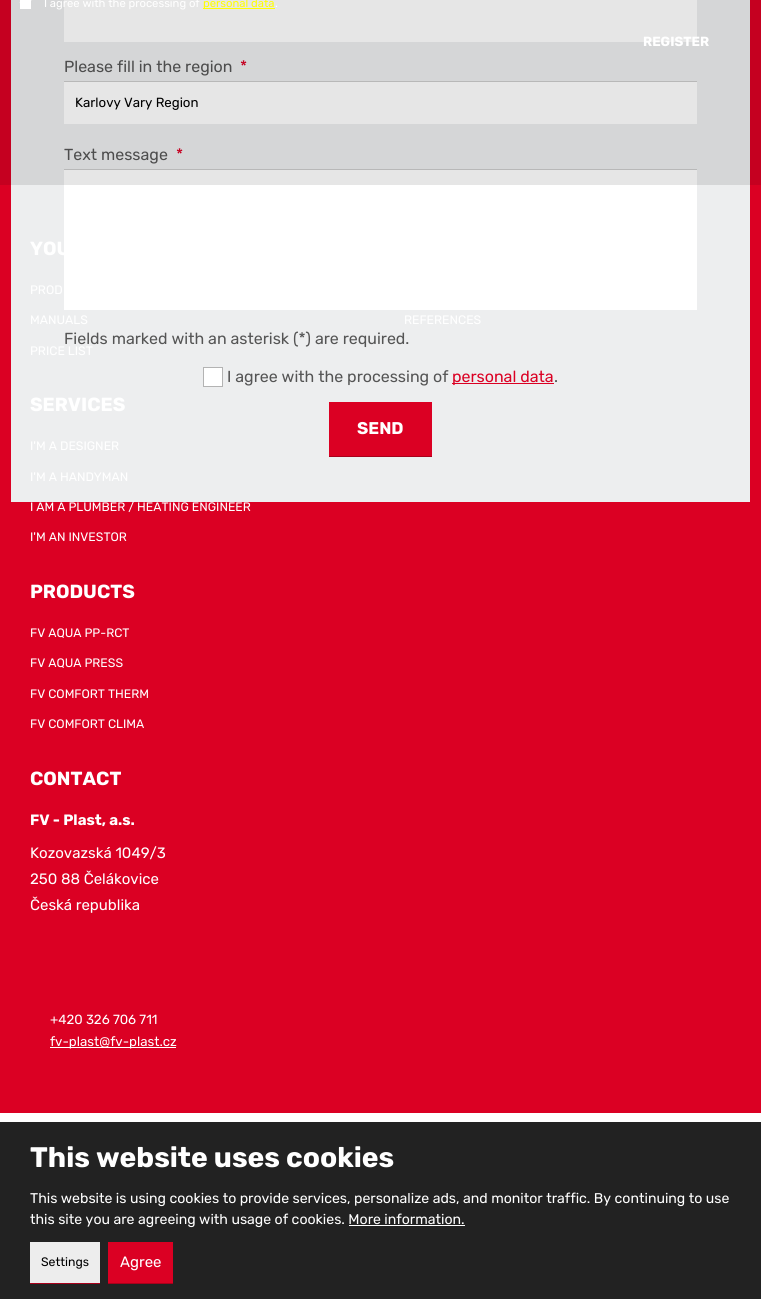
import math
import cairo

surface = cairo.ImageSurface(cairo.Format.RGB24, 761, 1299)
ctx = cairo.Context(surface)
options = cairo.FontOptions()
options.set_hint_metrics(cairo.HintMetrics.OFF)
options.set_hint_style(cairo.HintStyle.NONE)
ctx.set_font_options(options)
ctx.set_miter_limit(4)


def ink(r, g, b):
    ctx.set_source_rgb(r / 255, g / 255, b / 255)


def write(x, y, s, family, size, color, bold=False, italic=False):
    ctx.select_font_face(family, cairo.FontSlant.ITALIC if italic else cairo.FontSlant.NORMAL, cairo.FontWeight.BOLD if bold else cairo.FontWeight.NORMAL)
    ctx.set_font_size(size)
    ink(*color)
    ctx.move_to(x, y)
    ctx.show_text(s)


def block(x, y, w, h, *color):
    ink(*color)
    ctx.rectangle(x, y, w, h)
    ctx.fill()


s1 = dict(family="Rubik", size=11.25, color=(255, 255, 255))
s2 = dict(family="Rubik", size=11.25, color=(255, 255, 0))
s3 = dict(family="Rubik", size=13.25, color=(255, 255, 255), bold=True)
s4 = dict(family="Rubik", size=19, color=(255, 255, 255), bold=True)
s5 = dict(family="Rubik", size=12.25, color=(255, 255, 255))
s6 = dict(family="Rubik", size=15, color=(255, 255, 255), bold=True)
s7 = dict(family="Rubik", size=15, color=(255, 255, 255))
s8 = dict(family="Rubik", size=13.25, color=(255, 255, 255))
s9 = dict(family="Rubik", size=16, color=(77, 77, 77))
s10 = dict(family="Rubik", size=16, color=(197, 0, 32))
s11 = dict(family="Rubik", size=13.25, color=(0, 0, 0))
s12 = dict(family="Rubik", size=16, color=(85, 85, 85))
s13 = dict(family="Rubik", size=16, color=(219, 0, 35))
s14 = dict(family="Rubik", size=17, color=(255, 255, 255), bold=True)
s15 = dict(family="Rubik", size=28.25, color=(255, 255, 255), bold=True)
s16 = dict(family="Rubik", size=14.1, color=(255, 255, 255))
s17 = dict(family="Rubik", size=12.25, color=(0, 0, 0))

ink(255, 255, 255)
ctx.paint()
block(0, 185, 761, 928, 219, 0, 35)
block(0, 0, 761, 185, 197, 0, 32)
block(11, 0, 739, 185, 213, 214, 215)
block(20, 0, 11, 9, 255, 255, 255)
ctx.new_path()
ctx.move_to(23, 6)
ctx.line_to(30, -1)
ctx.line_to(31.5, 0.5)
ctx.line_to(24.5, 7.5)
ctx.close_path()
ctx.fill()
ctx.new_path()
ctx.move_to(19.5, 2.5)
ctx.line_to(21, 1.5)
ctx.line_to(25.5, 6)
ctx.line_to(24.5, 7.5)
ctx.close_path()
ctx.fill()
block(64, 0, 633, 42, 230, 230, 230)
write(44, 7, "I agree with the processing of", **s1)
block(203, 8, 72, 1, 255, 255, 0)
write(203, 7, "personal data", **s2)
write(275, 7, ".", **s1)
write(643, 46, "REGISTER", **s3)
block(11, 185, 739, 317, 237, 238, 239)
block(64, 185, 633, 125, 255, 255, 255)
write(30, 255, "YOU", **s4)
write(30, 294, "PROD", **s5)
write(30, 324, "MANUALS", **s5)
write(404, 324, "REFERENCES", **s5)
write(30, 355, "PRICE LIST", **s5)
write(30, 411, "SERVICES", **s4)
write(30, 450, "I'M A DESIGNER", **s5)
write(30, 481, "I'M A HANDYMAN", **s5)
write(30, 511, "I AM A PLUMBER / HEATING ENGINEER", **s5)
write(30, 541, "I'M AN INVESTOR", **s5)
write(30, 598, "PRODUCTS", **s4)
write(30, 637, "FV AQUA PP-RCT", **s5)
write(30, 667, "FV AQUA PRESS", **s5)
write(30, 698, "FV COMFORT THERM", **s5)
write(30, 728, "FV COMFORT CLIMA", **s5)
write(30, 785, "CONTACT", **s4)
write(30, 825, "FV - Plast, a.s.", **s6)
write(30, 858, "Kozovazská 1049/3", **s7)
write(30, 884, "250 88 Čelákovice", **s7)
write(30, 910, "Česká republika", **s7)
write(50, 1024, "+420 326 706 711", **s8)
block(50, 1047, 126, 1, 255, 255, 255)
write(50, 1046, "fv-plast@fv-plast.cz", **s8)
write(64, 72, "Please fill in the region", **s9)
write(240, 72, "*", **s10)
block(64, 82, 633, 42, 230, 230, 230)
block(64, 81, 633, 1, 184, 184, 184)
write(75, 107, "Karlovy Vary Region", **s11)
write(64, 160, "Text message", **s9)
write(176, 160, "*", **s10)
block(64, 170, 633, 15, 230, 230, 230)
block(64, 169, 633, 1, 184, 184, 184)
write(64, 344, "Fields marked with an asterisk (*) are required.", **s12)
ink(255, 255, 255)
ctx.rectangle(203.5, 367.5, 19, 19)
ctx.fill_preserve()
ink(179, 179, 179)
ctx.set_line_width(1)
ctx.stroke()
write(227, 382, "I agree with the processing of", **s12)
block(452, 383, 102, 1, 219, 0, 35)
write(452, 382, "personal data", **s13)
write(554, 382, ".", **s12)
block(329, 402, 103, 54, 219, 0, 35)
block(329, 456, 103, 1, 168, 0, 27)
write(357, 434, "SEND", **s14)
block(0, 1122, 761, 177, 34, 34, 34)
write(30, 1167, "This website uses cookies", **s15)
write(30, 1203, "This website is using cookies to provide services, personalize ads, and monitor traffic. By continuing to use", **s16)
write(30, 1224, "this site you are agreeing with usage of cookies. More information.", **s16)
block(349, 1225, 116, 1, 255, 255, 255)
block(30, 1242, 70, 41, 237, 237, 237)
block(30, 1283, 70, 1, 168, 0, 27)
write(41, 1266, "Settings", **s17)
block(108, 1242, 65, 41, 219, 0, 35)
block(108, 1283, 65, 1, 168, 0, 27)
write(120, 1267, "Agree", **s7)
surface.write_to_png("screenshot.png")
